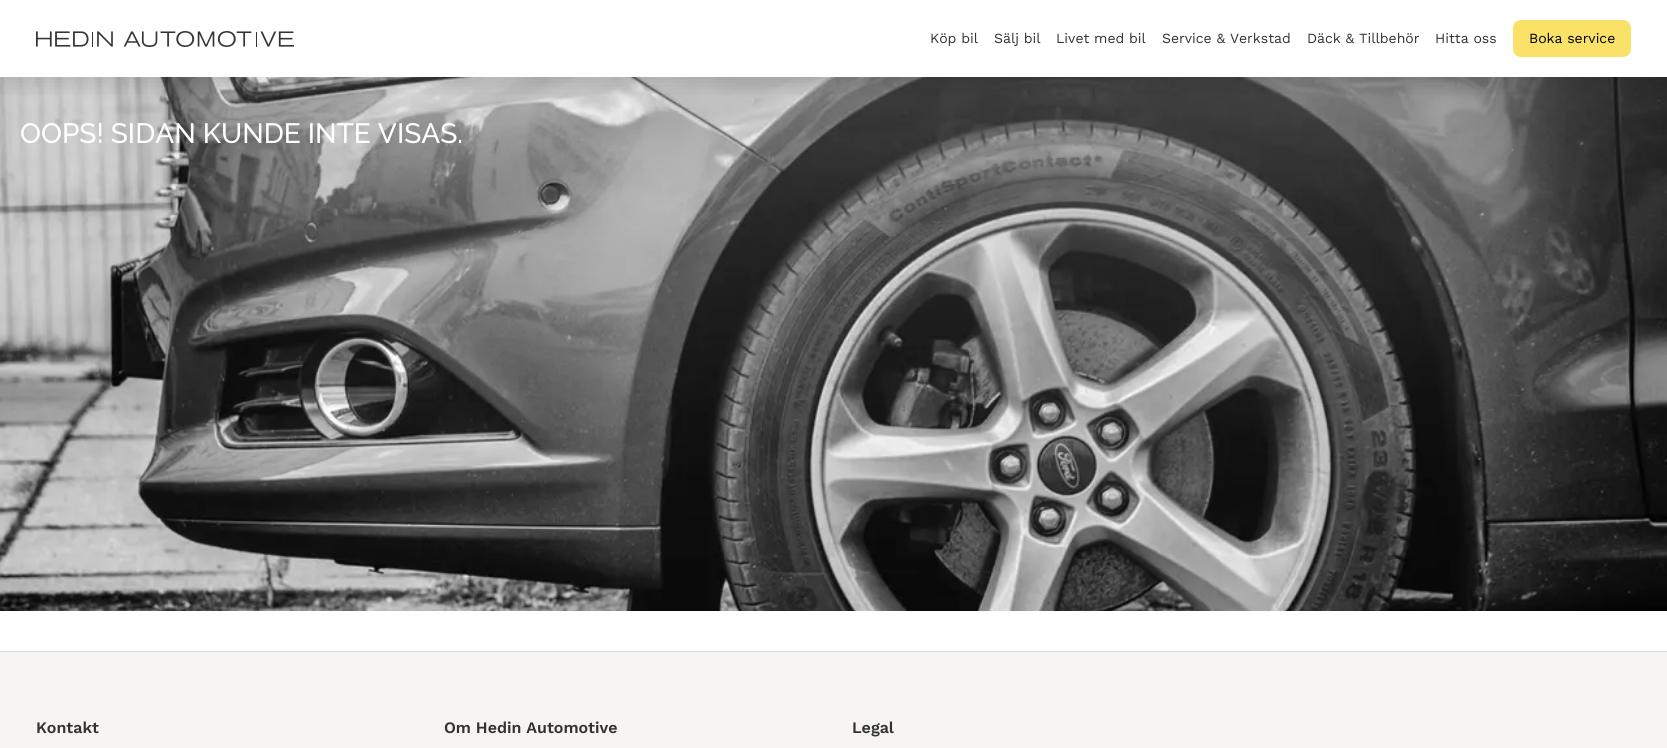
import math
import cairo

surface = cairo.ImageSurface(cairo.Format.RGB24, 1667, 748)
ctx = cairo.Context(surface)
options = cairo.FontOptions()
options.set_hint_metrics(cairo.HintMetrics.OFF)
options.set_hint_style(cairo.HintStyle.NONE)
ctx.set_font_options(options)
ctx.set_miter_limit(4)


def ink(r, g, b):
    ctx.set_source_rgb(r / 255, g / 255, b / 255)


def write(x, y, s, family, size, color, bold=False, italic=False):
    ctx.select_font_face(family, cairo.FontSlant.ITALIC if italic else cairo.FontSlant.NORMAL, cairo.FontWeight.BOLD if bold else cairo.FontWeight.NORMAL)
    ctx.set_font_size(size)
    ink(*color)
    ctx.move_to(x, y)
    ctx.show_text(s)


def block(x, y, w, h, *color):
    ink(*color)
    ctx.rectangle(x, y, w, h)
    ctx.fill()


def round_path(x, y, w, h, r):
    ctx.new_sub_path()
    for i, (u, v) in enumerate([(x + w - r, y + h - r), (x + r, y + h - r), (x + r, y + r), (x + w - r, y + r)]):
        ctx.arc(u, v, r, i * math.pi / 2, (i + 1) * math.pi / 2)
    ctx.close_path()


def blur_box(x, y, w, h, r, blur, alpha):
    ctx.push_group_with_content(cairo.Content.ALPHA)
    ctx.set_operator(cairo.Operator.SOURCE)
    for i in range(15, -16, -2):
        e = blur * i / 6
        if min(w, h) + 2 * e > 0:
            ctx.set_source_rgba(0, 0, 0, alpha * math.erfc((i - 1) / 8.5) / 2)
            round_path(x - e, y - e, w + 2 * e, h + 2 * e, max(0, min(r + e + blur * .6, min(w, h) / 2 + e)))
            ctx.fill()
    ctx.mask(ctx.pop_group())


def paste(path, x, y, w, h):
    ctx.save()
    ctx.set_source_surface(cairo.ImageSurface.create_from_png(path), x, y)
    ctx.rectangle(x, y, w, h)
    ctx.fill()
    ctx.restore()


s1 = dict(family="Work Sans", size=14, color=(51, 51, 51))
s2 = dict(family="Work Sans", size=14, color=(0, 0, 0))
s3 = dict(family="Raleway Medium", size=28, color=(255, 255, 255))
s4 = dict(family="Work Sans SemiBold", size=16, color=(51, 51, 51))

ink(255, 255, 255)
ctx.paint()
paste("pic2.png", 0, 77, 1667, 534)
ctx.save()
ctx.rectangle(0, 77, 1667, 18)
ctx.clip()
ink(0, 0, 0)
blur_box(0, 8, 1667, 77, 0, 10, 0.12)
ctx.restore()
paste("pic1.png", 36, 31, 258, 16)
write(930, 43, "Köp bil", **s1)
write(994, 43, "Sälj bil", **s1)
write(1056, 43, "Livet med bil", **s1)
write(1162, 43, "Service & Verkstad", **s1)
write(1307, 43, "Däck & Tillbehör", **s1)
write(1435, 43, "Hitta oss", **s1)
ink(249, 226, 103)
round_path(1513, 20, 118, 37, 8)
ctx.fill()
write(1529, 43, "Boka service", **s2)
write(20, 143, "OOPS! SIDAN KUNDE INTE VISAS.", **s3)
block(0, 652, 1667, 96, 246, 245, 244)
block(0, 651, 1667, 1, 217, 216, 214)
write(36, 733, "Kontakt", **s4)
write(444, 733, "Om Hedin Automotive", **s4)
write(852, 733, "Legal", **s4)
surface.write_to_png("screenshot.png")
